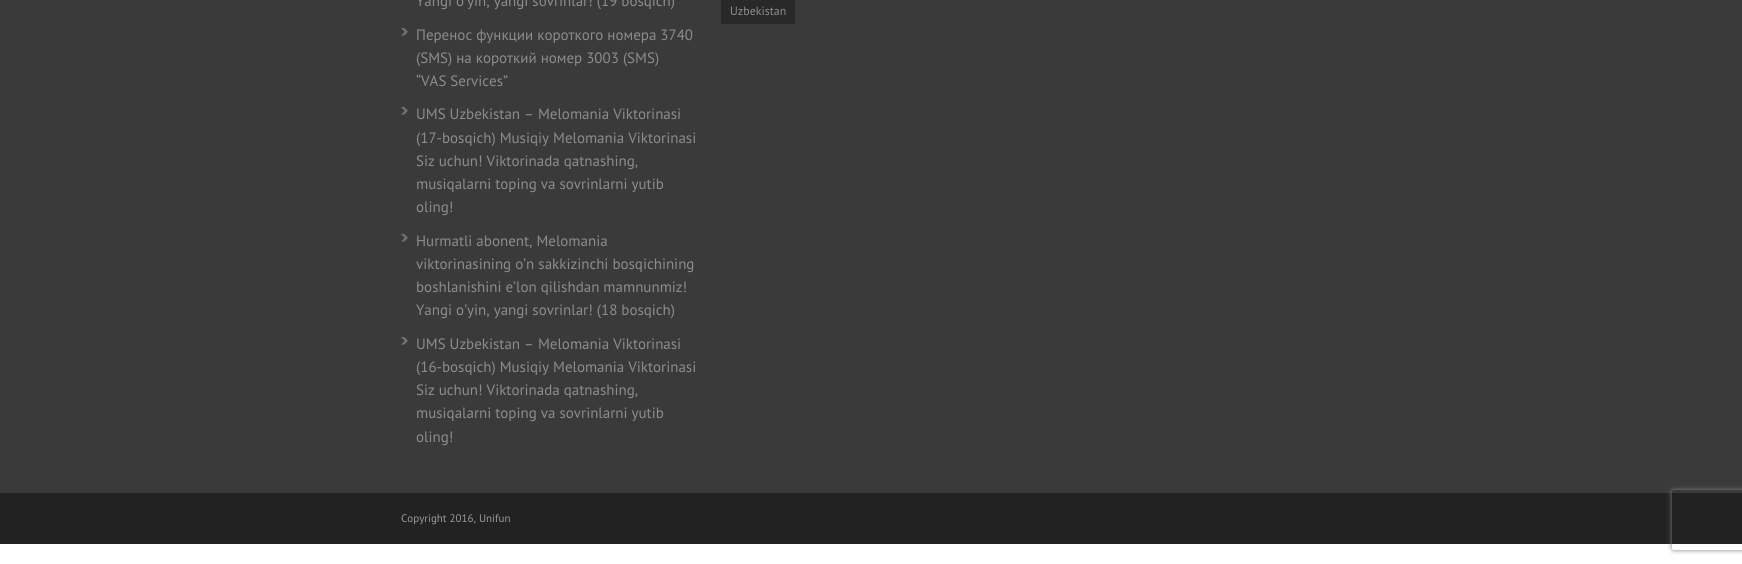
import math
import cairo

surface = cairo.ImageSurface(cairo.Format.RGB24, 1742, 564)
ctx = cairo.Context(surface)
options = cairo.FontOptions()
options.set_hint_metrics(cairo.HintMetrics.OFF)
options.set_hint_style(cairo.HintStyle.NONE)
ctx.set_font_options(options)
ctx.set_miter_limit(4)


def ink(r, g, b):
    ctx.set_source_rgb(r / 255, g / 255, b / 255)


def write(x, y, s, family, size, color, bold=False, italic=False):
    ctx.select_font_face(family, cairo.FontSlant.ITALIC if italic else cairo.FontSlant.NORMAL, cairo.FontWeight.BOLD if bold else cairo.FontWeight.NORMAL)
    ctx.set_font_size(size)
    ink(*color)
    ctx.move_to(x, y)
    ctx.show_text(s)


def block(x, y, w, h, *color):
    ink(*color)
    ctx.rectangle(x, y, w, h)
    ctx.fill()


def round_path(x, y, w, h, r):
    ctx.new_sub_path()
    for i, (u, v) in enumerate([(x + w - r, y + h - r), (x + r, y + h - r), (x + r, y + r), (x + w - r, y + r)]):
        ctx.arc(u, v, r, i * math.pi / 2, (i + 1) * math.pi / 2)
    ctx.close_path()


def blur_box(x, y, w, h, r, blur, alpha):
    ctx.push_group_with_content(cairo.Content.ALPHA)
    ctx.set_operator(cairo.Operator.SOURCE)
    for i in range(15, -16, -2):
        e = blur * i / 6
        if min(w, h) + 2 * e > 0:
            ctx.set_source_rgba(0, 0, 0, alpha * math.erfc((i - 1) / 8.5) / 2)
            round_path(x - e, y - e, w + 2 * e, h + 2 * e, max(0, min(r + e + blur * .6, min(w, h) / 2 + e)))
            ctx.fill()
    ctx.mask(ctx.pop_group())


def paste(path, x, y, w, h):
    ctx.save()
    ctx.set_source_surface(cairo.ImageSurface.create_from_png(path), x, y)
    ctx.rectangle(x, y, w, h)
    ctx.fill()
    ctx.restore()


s1 = dict(family="PT Sans", size=15, color=(140, 140, 140))
s2 = dict(family="PT Sans", size=12, color=(140, 140, 140))
s3 = dict(family="PT Sans", size=11, color=(153, 153, 153))

ink(255, 255, 255)
ctx.paint()
block(0, 0, 1742, 493, 58, 58, 58)
write(416, 6, "Yangi o’yin, yangi sovrinlar! (19 bosqich)", **s1)
paste("pic1.png", 401, 28, 7, 8)
write(416, 40, "Перенос функции короткого номера 3740", **s1)
write(416, 63, "(SMS) на короткий номер 3003 (SMS)", **s1)
write(416, 86, "“VAS Services”", **s1)
paste("pic1.png", 401, 107, 7, 8)
write(416, 119, "UMS Uzbekistan – Melomania Viktorinasi", **s1)
write(416, 143, "(17-bosqich) Musiqiy Melomania Viktorinasi", **s1)
write(416, 166, "Siz uchun! Viktorinada qatnashing,", **s1)
write(416, 189, "musiqalarni toping va sovrinlarni yutib", **s1)
write(416, 212, "oling!", **s1)
paste("pic1.png", 401, 234, 7, 8)
write(416, 246, "Hurmatli abonent, Melomania", **s1)
write(416, 269, "viktorinasining o’n sakkizinchi bosqichining", **s1)
write(416, 292, "boshlanishini e’lon qilishdan mamnunmiz!", **s1)
write(416, 315, "Yangi o’yin, yangi sovrinlar! (18 bosqich)", **s1)
paste("pic1.png", 401, 337, 7, 8)
write(416, 349, "UMS Uzbekistan – Melomania Viktorinasi", **s1)
write(416, 372, "(16-bosqich) Musiqiy Melomania Viktorinasi", **s1)
write(416, 395, "Siz uchun! Viktorinada qatnashing,", **s1)
write(416, 418, "musiqalarni toping va sovrinlarni yutib", **s1)
write(416, 442, "oling!", **s1)
block(721, 0, 74, 24, 41, 41, 41)
write(730, 15, "Uzbekistan", **s2)
block(0, 493, 1742, 51, 34, 34, 34)
write(401, 522, "Copyright 2016, Unifun", **s3)
ctx.save()
ctx.set_fill_rule(cairo.FillRule.EVEN_ODD)
ctx.new_path()
ctx.move_to(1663, 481)
ctx.line_to(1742, 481)
ctx.line_to(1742, 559)
ctx.line_to(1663, 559)
ctx.close_path()
ctx.move_to(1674, 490)
ctx.line_to(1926, 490)
ctx.curve_to(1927, 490, 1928, 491, 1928, 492)
ctx.line_to(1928, 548)
ctx.curve_to(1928, 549, 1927, 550, 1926, 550)
ctx.line_to(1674, 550)
ctx.curve_to(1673, 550, 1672, 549, 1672, 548)
ctx.line_to(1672, 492)
ctx.curve_to(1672, 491, 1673, 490, 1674, 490)
ctx.close_path()
ctx.clip()
ink(128, 128, 128)
blur_box(1672, 490, 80, 60, 2, 2.5, 1)
ctx.restore()
surface.write_to_png("screenshot.png")
